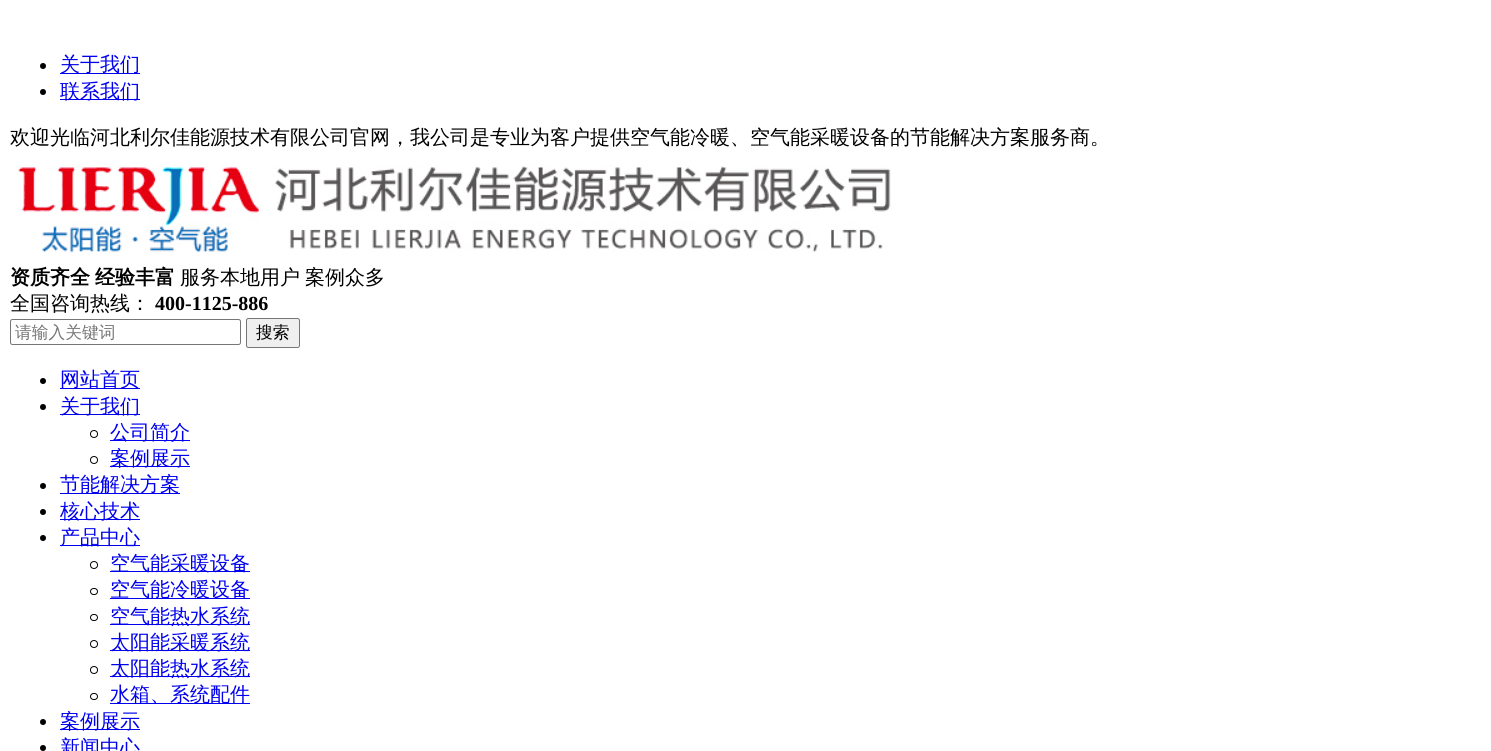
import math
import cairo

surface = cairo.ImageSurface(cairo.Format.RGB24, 1491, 751)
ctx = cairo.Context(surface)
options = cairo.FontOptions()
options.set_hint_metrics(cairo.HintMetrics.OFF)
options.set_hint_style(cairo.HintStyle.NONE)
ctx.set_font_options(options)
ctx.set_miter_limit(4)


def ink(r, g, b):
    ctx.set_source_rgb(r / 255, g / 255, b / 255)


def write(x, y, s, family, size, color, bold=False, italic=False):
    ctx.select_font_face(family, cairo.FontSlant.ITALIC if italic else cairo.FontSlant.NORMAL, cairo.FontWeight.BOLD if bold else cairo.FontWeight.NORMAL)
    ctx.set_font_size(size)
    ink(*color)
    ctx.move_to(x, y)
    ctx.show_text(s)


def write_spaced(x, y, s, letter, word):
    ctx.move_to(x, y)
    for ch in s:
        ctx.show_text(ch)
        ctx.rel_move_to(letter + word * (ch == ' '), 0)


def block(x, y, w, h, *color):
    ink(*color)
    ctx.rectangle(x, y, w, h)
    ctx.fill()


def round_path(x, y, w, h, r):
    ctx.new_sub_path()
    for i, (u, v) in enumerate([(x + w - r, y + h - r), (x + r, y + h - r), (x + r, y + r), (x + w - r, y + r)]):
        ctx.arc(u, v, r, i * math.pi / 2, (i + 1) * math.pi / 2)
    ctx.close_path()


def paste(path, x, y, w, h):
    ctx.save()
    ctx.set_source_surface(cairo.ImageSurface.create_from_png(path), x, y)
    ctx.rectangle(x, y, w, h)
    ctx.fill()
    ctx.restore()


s1 = dict(family="WenQuanYi Zen Hei Medium", size=20, color=(0, 0, 238))
s2 = dict(family="WenQuanYi Zen Hei Medium", size=20, color=(0, 0, 0))
s3 = dict(family="Liberation Serif", size=20, color=(0, 0, 0), bold=True)
s4 = dict(family="WenQuanYi Zen Hei Medium", size=16.75, color=(117, 117, 117))
s5 = dict(family="WenQuanYi Zen Hei Medium", size=16.75, color=(0, 0, 0))

ink(255, 255, 255)
ctx.paint()
ink(0, 0, 0)
ctx.arc(43, 66, 3, 0, 2 * math.pi)
ctx.fill()
block(60, 73, 80, 1, 0, 0, 238)
write(60, 71, "关于我们", **s1)
ink(0, 0, 0)
ctx.new_path()
ctx.arc(43, 92, 3, 0, 2 * math.pi)
ctx.fill()
block(60, 99, 80, 1, 0, 0, 238)
write(60, 98, "联系我们", **s1)
write(10, 144, "欢迎光临河北利尔佳能源技术有限公司官网，我公司是专业为客户提供空气能冷暖、空气能采暖设备的节能解决方案服务商。", **s2)
paste("pic1.png", 18, 164, 873, 89)
ctx.select_font_face("WenQuanYi Zen Hei", cairo.FontSlant.NORMAL, cairo.FontWeight.BOLD)
write_spaced(10, 284, "资质齐全 经验丰富", 0, -1)
ctx.select_font_face("WenQuanYi Zen Hei Medium")
write_spaced(180, 284, "服务本地用户 案例众多", 0, -1)
write(10, 310, "全国咨询热线：", **s2)
write(155, 310, "400-1125-886", **s3)
round_path(10.5, 319.5, 230, 25, 2)
ink(118, 118, 118)
ctx.set_line_width(1)
ctx.stroke()
write(15, 338, "请输入关键词", **s4)
ink(239, 239, 239)
round_path(246.5, 318.5, 53, 29, 2)
ctx.fill_preserve()
ink(118, 118, 118)
ctx.stroke()
write(256, 338, "搜索", **s5)
ctx.new_path()
ctx.arc(43, 381, 3, 0, 2 * math.pi)
ctx.fill()
block(60, 388, 80, 1, 0, 0, 238)
write(60, 386, "网站首页", **s1)
ink(0, 0, 0)
ctx.new_path()
ctx.arc(43, 407, 3, 0, 2 * math.pi)
ctx.fill()
block(60, 414, 80, 1, 0, 0, 238)
write(60, 413, "关于我们", **s1)
ctx.new_path()
ctx.arc(94, 434, 3.5, 0, 2 * math.pi)
ink(0, 0, 0)
ctx.stroke()
block(110, 440, 80, 1, 0, 0, 238)
write(110, 439, "公司简介", **s1)
ctx.new_path()
ctx.arc(94, 460, 3.5, 0, 2 * math.pi)
ink(0, 0, 0)
ctx.stroke()
block(110, 466, 80, 1, 0, 0, 238)
write(110, 465, "案例展示", **s1)
ink(0, 0, 0)
ctx.new_path()
ctx.arc(43, 486, 3, 0, 2 * math.pi)
ctx.fill()
block(60, 493, 120, 1, 0, 0, 238)
write(60, 491, "节能解决方案", **s1)
ink(0, 0, 0)
ctx.new_path()
ctx.arc(43, 512, 3, 0, 2 * math.pi)
ctx.fill()
block(60, 519, 80, 1, 0, 0, 238)
write(60, 518, "核心技术", **s1)
ink(0, 0, 0)
ctx.new_path()
ctx.arc(43, 538, 3, 0, 2 * math.pi)
ctx.fill()
block(60, 545, 80, 1, 0, 0, 238)
write(60, 544, "产品中心", **s1)
ctx.new_path()
ctx.arc(94, 565, 3.5, 0, 2 * math.pi)
ink(0, 0, 0)
ctx.stroke()
block(110, 571, 140, 1, 0, 0, 238)
write(110, 570, "空气能采暖设备", **s1)
round_path(90.5, 588.5, 7, 6, 3)
ink(0, 0, 0)
ctx.stroke()
block(110, 598, 140, 1, 0, 0, 238)
write(110, 596, "空气能冷暖设备", **s1)
round_path(90.5, 614.5, 7, 6, 3)
ink(0, 0, 0)
ctx.stroke()
block(110, 624, 140, 1, 0, 0, 238)
write(110, 623, "空气能热水系统", **s1)
ctx.new_path()
ctx.arc(94, 644, 3.5, 0, 2 * math.pi)
ink(0, 0, 0)
ctx.stroke()
block(110, 650, 140, 1, 0, 0, 238)
write(110, 649, "太阳能采暖系统", **s1)
ctx.new_path()
ctx.arc(94, 670, 3.5, 0, 2 * math.pi)
ink(0, 0, 0)
ctx.stroke()
block(110, 676, 140, 1, 0, 0, 238)
write(110, 675, "太阳能热水系统", **s1)
round_path(90.5, 693.5, 7, 6, 3)
ink(0, 0, 0)
ctx.stroke()
block(110, 703, 140, 1, 0, 0, 238)
write(110, 701, "水箱、系统配件", **s1)
ink(0, 0, 0)
ctx.new_path()
ctx.arc(43, 722, 3, 0, 2 * math.pi)
ctx.fill()
block(60, 729, 80, 1, 0, 0, 238)
write(60, 728, "案例展示", **s1)
ink(0, 0, 0)
ctx.new_path()
ctx.arc(43, 748, 3, 0, 2 * math.pi)
ctx.fill()
write(60, 754, "新闻中心", **s1)
surface.write_to_png("screenshot.png")
